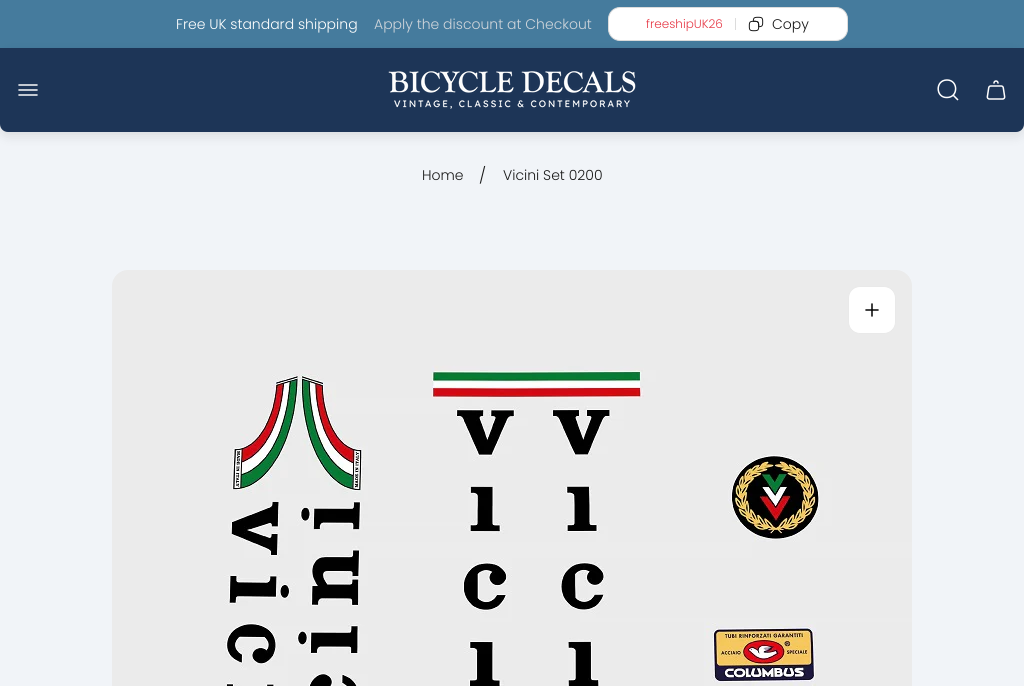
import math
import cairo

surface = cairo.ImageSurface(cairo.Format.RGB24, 1024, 686)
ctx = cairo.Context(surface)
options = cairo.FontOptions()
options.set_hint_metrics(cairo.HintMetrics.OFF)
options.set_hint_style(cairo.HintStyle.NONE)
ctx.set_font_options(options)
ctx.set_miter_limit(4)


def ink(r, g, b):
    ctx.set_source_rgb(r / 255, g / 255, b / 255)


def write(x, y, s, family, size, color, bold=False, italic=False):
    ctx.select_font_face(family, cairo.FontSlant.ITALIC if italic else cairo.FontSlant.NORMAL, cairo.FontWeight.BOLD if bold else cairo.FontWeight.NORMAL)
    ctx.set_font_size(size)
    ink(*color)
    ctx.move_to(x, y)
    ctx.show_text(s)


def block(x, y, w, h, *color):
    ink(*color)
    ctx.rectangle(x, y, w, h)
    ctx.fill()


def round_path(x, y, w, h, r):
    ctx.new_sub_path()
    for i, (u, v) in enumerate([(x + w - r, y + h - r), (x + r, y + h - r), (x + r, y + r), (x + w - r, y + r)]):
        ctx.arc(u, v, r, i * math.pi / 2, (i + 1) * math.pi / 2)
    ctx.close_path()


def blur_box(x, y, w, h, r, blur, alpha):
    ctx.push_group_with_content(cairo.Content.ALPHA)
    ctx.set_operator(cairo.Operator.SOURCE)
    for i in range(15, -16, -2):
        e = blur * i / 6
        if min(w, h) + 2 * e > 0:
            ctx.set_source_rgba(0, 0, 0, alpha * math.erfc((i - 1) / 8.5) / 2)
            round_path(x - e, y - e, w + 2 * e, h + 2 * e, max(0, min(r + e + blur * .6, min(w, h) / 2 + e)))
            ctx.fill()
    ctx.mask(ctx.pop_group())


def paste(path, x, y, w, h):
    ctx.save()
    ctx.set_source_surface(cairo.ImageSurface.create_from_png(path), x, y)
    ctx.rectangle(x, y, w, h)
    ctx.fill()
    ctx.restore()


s1 = dict(family="Poppins Light", size=14, color=(255, 255, 255))
s2 = dict(family="Poppins Light", size=14, color=(206, 212, 218))
s3 = dict(family="Poppins Light", size=12, color=(230, 57, 70))
s4 = dict(family="Poppins Light", size=14, color=(26, 26, 26))
s5 = dict(family="Poppins Light", size=16, color=(26, 26, 26))

ink(241, 244, 248)
ctx.paint()
block(0, 0, 1024, 48, 69, 123, 157)
write(176, 29, "Free UK standard shipping", **s1)
write(374, 29, "Apply the discount at Checkout", **s2)
ink(0, 0, 0)
blur_box(0, 52, 1024, 84, 8, 5.5, 0.1)
ink(255, 255, 255)
round_path(608.5, 7.5, 239, 33, 11.5)
ctx.fill_preserve()
ink(220, 220, 220)
ctx.set_line_width(1)
ctx.stroke()
write(646, 28, "freeshipUK26", **s3)
block(735, 18, 1, 12, 220, 220, 220)
paste("pic1.png", 748, 16, 16, 16)
write(772, 29, "Copy", **s4)
ink(29, 53, 87)
ctx.new_path()
ctx.move_to(0, 48)
ctx.line_to(1024, 48)
ctx.line_to(1024, 124)
ctx.curve_to(1024, 128.5, 1020.5, 132, 1016, 132)
ctx.line_to(8, 132)
ctx.curve_to(3.5, 132, 0, 128.5, 0, 124)
ctx.close_path()
ctx.fill()
paste("pic2.png", 18, 84, 20, 12)
paste("pic3.png", 388, 71, 248, 38)
ctx.new_path()
ctx.move_to(953, 95)
ctx.line_to(958, 100)
ctx.move_to(947, 80)
ctx.curve_to(958.5, 80, 958.5, 97.5, 947, 97.5)
ctx.curve_to(935.5, 98, 935, 80, 947, 80)
ctx.close_path()
ink(255, 255, 255)
ctx.set_line_width(1.5)
ctx.stroke()
paste("pic4.png", 986, 80, 20, 20)
write(422, 180, "Home", **s4)
write(479, 181, "/", **s5)
write(503, 180, "Vicini Set 0200", **s4)
paste("pic5.png", 112, 270, 800, 416)
ink(255, 255, 255)
round_path(848.5, 286.5, 47, 47, 11.5)
ctx.fill_preserve()
ink(233, 233, 233)
ctx.set_line_width(1)
ctx.stroke()
ctx.new_path()
ctx.move_to(866, 310)
ctx.line_to(878, 310)
ctx.move_to(872, 316)
ctx.line_to(872, 304)
ink(0, 0, 0)
ctx.set_line_width(1.5)
ctx.set_line_cap(cairo.LineCap.ROUND)
ctx.set_line_join(cairo.LineJoin.ROUND)
ctx.stroke()
surface.write_to_png("screenshot.png")
